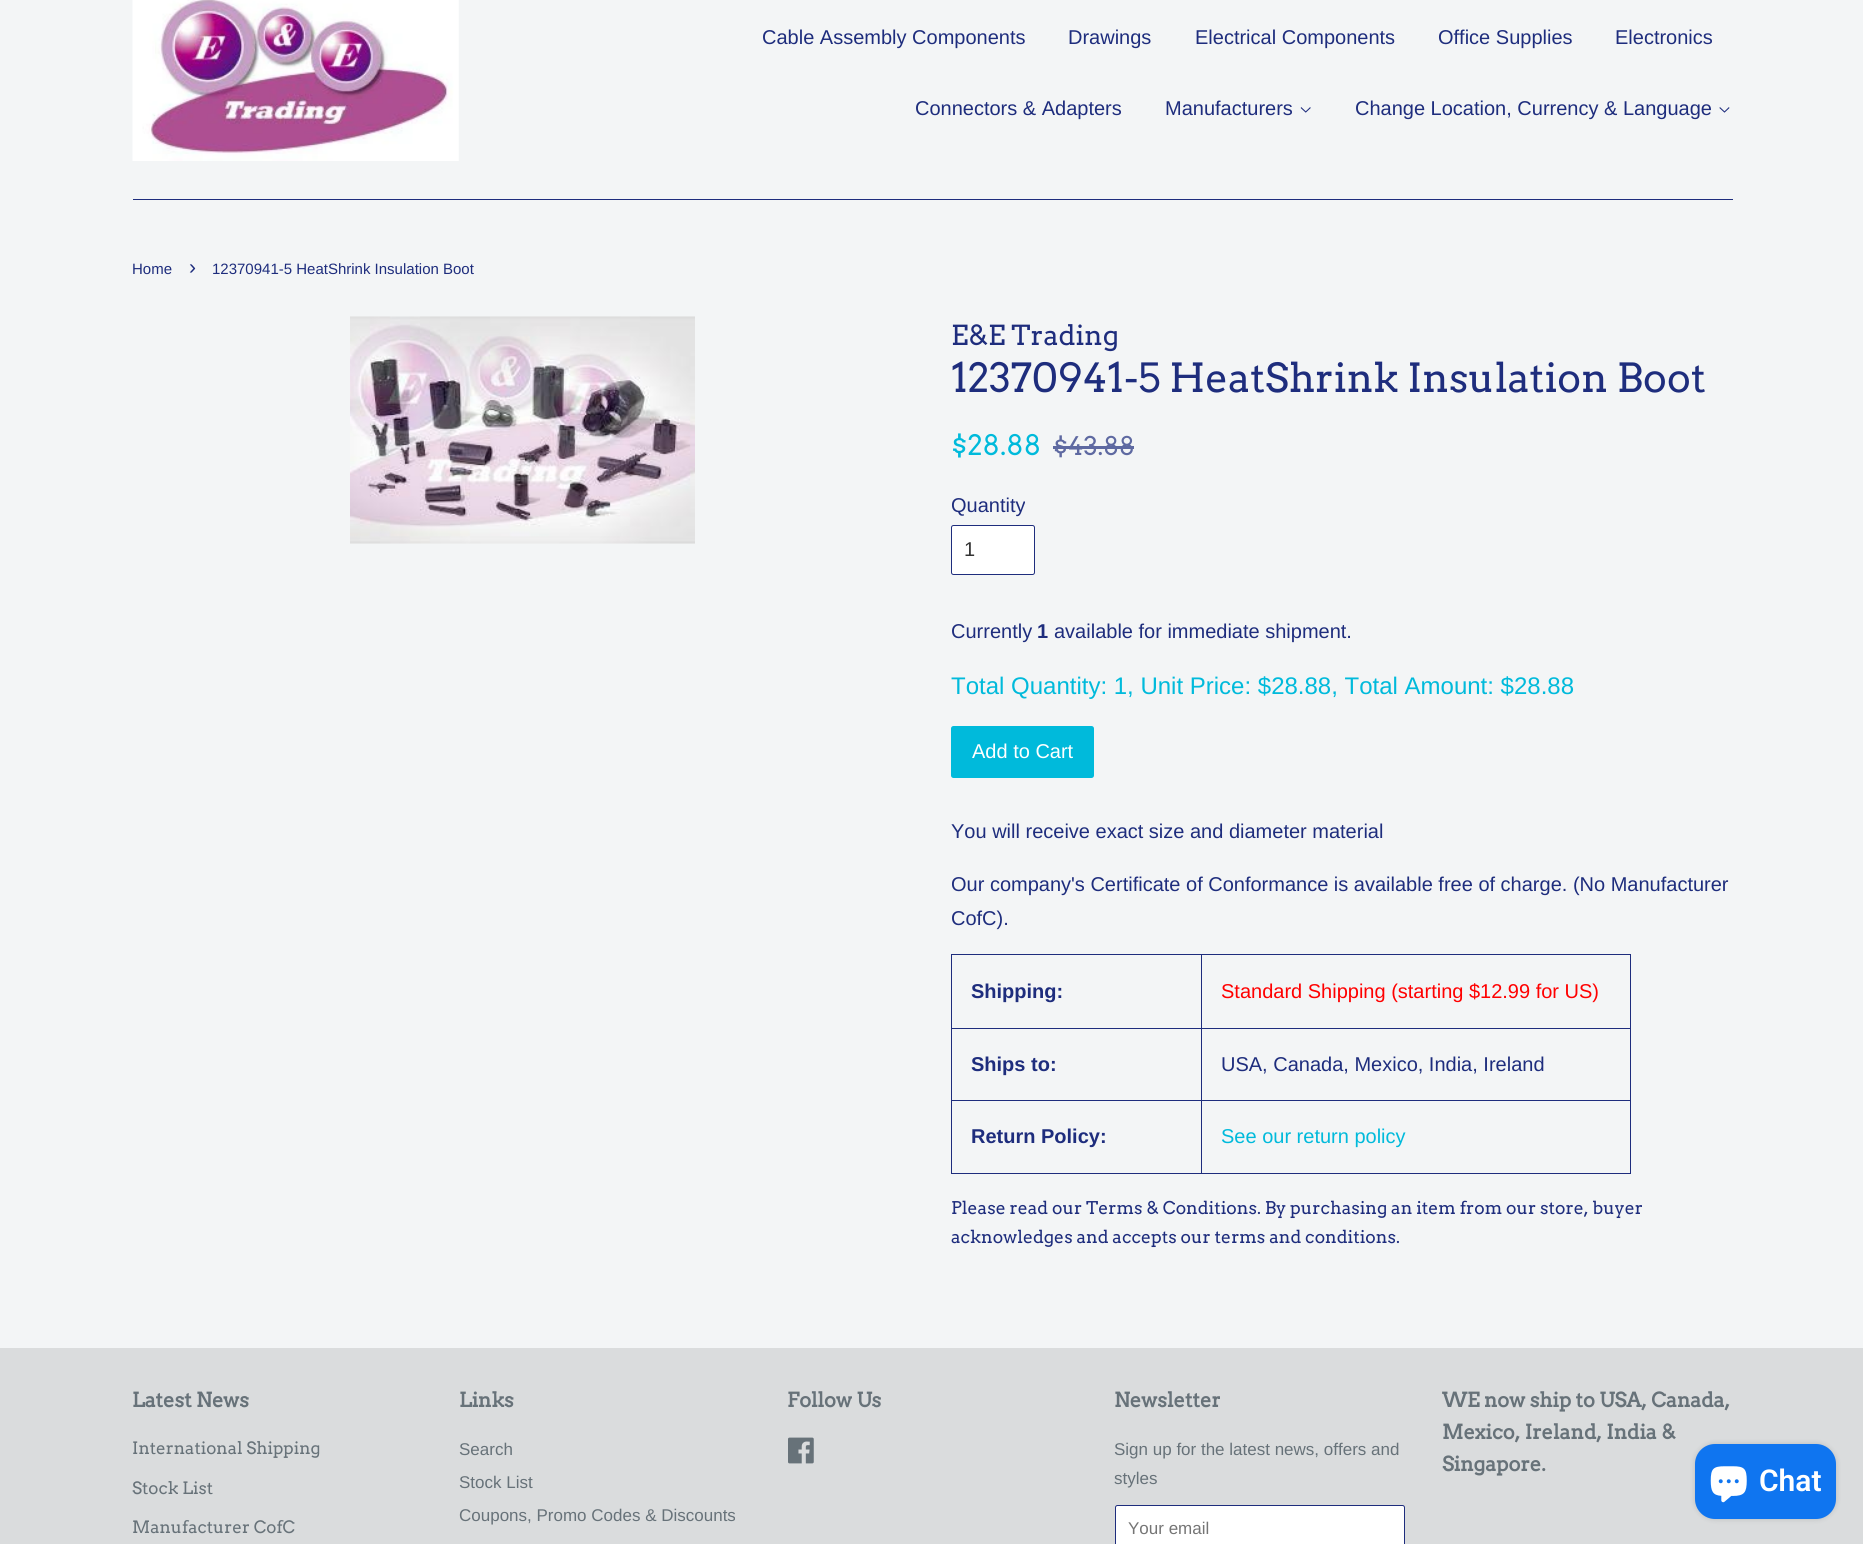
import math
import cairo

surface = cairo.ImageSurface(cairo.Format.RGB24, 1863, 1544)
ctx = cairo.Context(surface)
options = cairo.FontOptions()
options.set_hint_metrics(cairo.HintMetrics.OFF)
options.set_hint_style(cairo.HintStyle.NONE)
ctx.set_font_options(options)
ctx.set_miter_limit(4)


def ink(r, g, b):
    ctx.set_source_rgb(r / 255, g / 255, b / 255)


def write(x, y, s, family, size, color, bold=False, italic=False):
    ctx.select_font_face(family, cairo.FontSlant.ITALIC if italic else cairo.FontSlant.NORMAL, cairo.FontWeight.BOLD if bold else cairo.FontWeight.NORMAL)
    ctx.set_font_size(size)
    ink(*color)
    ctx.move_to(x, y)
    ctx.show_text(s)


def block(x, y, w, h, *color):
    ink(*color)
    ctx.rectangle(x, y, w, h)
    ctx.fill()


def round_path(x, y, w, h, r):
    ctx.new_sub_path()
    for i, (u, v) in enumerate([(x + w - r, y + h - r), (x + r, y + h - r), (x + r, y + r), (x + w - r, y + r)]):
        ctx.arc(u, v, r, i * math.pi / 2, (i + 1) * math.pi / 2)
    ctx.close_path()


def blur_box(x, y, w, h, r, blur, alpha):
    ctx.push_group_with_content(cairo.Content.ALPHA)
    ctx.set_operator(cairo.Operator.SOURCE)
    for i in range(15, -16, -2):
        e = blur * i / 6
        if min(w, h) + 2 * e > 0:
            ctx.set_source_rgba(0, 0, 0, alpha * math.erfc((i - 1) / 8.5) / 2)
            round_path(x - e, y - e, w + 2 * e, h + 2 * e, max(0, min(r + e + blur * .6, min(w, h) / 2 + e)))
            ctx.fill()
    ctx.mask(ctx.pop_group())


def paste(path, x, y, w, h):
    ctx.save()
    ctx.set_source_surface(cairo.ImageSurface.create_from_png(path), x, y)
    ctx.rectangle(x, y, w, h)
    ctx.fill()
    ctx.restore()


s1 = dict(family="Liberation Sans", size=20, color=(30, 45, 125))
s2 = dict(family="Liberation Sans", size=15, color=(30, 45, 125))
s3 = dict(family="Liberation Sans", size=21, color=(30, 45, 125))
s4 = dict(family="Arvo", size=27.5, color=(30, 45, 125))
s5 = dict(family="Arvo", size=40, color=(30, 45, 125))
s6 = dict(family="Arvo", size=28, color=(0, 186, 219))
s7 = dict(family="Arvo", size=25.5, color=(94, 105, 161))
s8 = dict(family="Liberation Sans", size=20, color=(51, 51, 51))
s9 = dict(family="Liberation Sans", size=20, color=(30, 45, 125), bold=True)
s10 = dict(family="Liberation Sans", size=24, color=(0, 186, 219))
s11 = dict(family="Liberation Sans", size=20, color=(255, 255, 255))
s12 = dict(family="Liberation Sans", size=20, color=(255, 0, 0))
s13 = dict(family="Liberation Sans", size=20, color=(0, 186, 219))
s14 = dict(family="Arvo", size=17.5, color=(30, 45, 125))
s15 = dict(family="Arvo", size=20, color=(103, 114, 121), bold=True)
s16 = dict(family="Arvo", size=17, color=(103, 114, 121))
s17 = dict(family="Liberation Sans", size=17, color=(103, 114, 121))
s18 = dict(family="Liberation Sans", size=17, color=(117, 117, 117))
s19 = dict(family="Roboto SemiBold", size=30, color=(255, 255, 255))

ink(243, 245, 246)
ctx.paint()
block(133, 199, 1600, 1, 30, 45, 125)
paste("pic1.png", 132, 0, 327, 161)
write(762, 44, "Cable Assembly Components", **s1)
write(1068, 44, "Drawings", **s1)
write(1195, 44, "Electrical Components", **s1)
write(1438, 44, "Office Supplies", **s1)
write(1615, 44, "Electronics", **s1)
write(915, 115, "Connectors & Adapters", **s1)
write(1165, 115, "Manufacturers", **s1)
paste("pic2.png", 1300, 107, 11, 6)
write(1355, 115, "Change Location, Currency & Language", **s1)
paste("pic3.png", 1719, 107, 11, 6)
write(132, 274, "Home", **s2)
write(189, 274, "›", **s3)
write(212, 274, "12370941-5 HeatShrink Insulation Boot", **s2)
paste("pic4.png", 350, 316, 345, 228)
write(951, 345, "E&E Trading", **s4)
write(951, 392, "12370941-5 HeatShrink Insulation Boot", **s5)
write(951, 455, "$28.88", **s6)
write(1053, 455, "$43.88", **s7)
block(1053, 446, 81, 3, 94, 105, 161)
write(951, 512, "Quantity", **s1)
ink(255, 255, 255)
round_path(951.5, 525.5, 83, 49, 2)
ctx.fill_preserve()
ink(30, 45, 125)
ctx.set_line_width(1)
ctx.stroke()
write(964, 556, "1", **s8)
write(951, 638, "Currently", **s1)
write(1037, 638, "1", **s9)
write(1054, 638, "available for immediate shipment.", **s1)
write(951, 694, "Total Quantity: 1, Unit Price: $28.88, Total Amount: $28.88", **s10)
round_path(951, 726, 143, 52, 2.5)
ctx.fill()
write(972, 758, "Add to Cart", **s11)
write(951, 838, "You will receive exact size and diameter material", **s1)
write(951, 891, "Our company's Certificate of Conformance is available free of charge. (No Manufacturer", **s1)
write(951, 925, "CofC).", **s1)
block(1201, 954, 430, 1, 30, 45, 125)
block(1201, 1028, 430, 1, 30, 45, 125)
block(1201, 1100, 430, 1, 30, 45, 125)
block(1630, 1100, 1, 74, 30, 45, 125)
block(1201, 1173, 430, 1, 30, 45, 125)
block(1201, 1100, 1, 74, 30, 45, 125)
block(951, 1100, 252, 1, 30, 45, 125)
block(1201, 1028, 1, 73, 30, 45, 125)
block(951, 1028, 252, 1, 30, 45, 125)
block(1201, 954, 1, 75, 30, 45, 125)
block(951, 954, 252, 1, 30, 45, 125)
block(951, 1173, 252, 1, 30, 45, 125)
block(951, 1100, 1, 74, 30, 45, 125)
block(951, 1028, 1, 73, 30, 45, 125)
block(951, 954, 1, 75, 30, 45, 125)
write(971, 998, "Shipping:", **s9)
block(1630, 1028, 1, 73, 30, 45, 125)
block(1630, 954, 1, 75, 30, 45, 125)
write(1221, 998, "Standard Shipping (starting $12.99 for US)", **s12)
write(971, 1071, "Ships to:", **s9)
write(1221, 1071, "USA, Canada, Mexico, India, Ireland", **s1)
write(971, 1143, "Return Policy:", **s9)
write(1221, 1143, "See our return policy", **s13)
write(951, 1214, "Please read our Terms & Conditions. By purchasing an item from our store, buyer", **s14)
write(951, 1243, "acknowledges and accepts our terms and conditions.", **s14)
block(0, 1348, 1863, 196, 218, 220, 221)
write(132, 1407, "Latest News", **s15)
write(132, 1454, "International Shipping", **s16)
write(132, 1494, "Stock List", **s16)
write(132, 1533, "Manufacturer CofC", **s16)
write(459, 1407, "Links", **s15)
write(459, 1455, "Search", **s17)
write(459, 1488, "Stock List", **s17)
write(459, 1521, "Coupons, Promo Codes & Discounts", **s17)
write(787, 1407, "Follow Us", **s15)
paste("pic5.png", 788, 1437, 26, 27)
write(1114, 1407, "Newsletter", **s15)
write(1114, 1455, "Sign up for the latest news, offers and", **s17)
write(1114, 1484, "styles", **s17)
ink(255, 255, 255)
round_path(1115.5, 1505.5, 289, 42, 2)
ctx.fill_preserve()
ink(30, 45, 125)
ctx.stroke()
write(1128, 1534, "Your email", **s18)
write(1442, 1407, "WE now ship to USA, Canada,", **s15)
write(1442, 1439, "Mexico, Ireland, India &", **s15)
write(1442, 1471, "Singapore.", **s15)
ink(0, 0, 0)
blur_box(1695, 1444, 141, 75, 20, 3, 0.15)
ink(15, 117, 240)
round_path(1695, 1444, 141, 75, 20)
ctx.fill()
paste("pic6.png", 1710, 1466, 37, 37)
write(1759, 1491, "Chat", **s19)
surface.write_to_png("screenshot.png")
